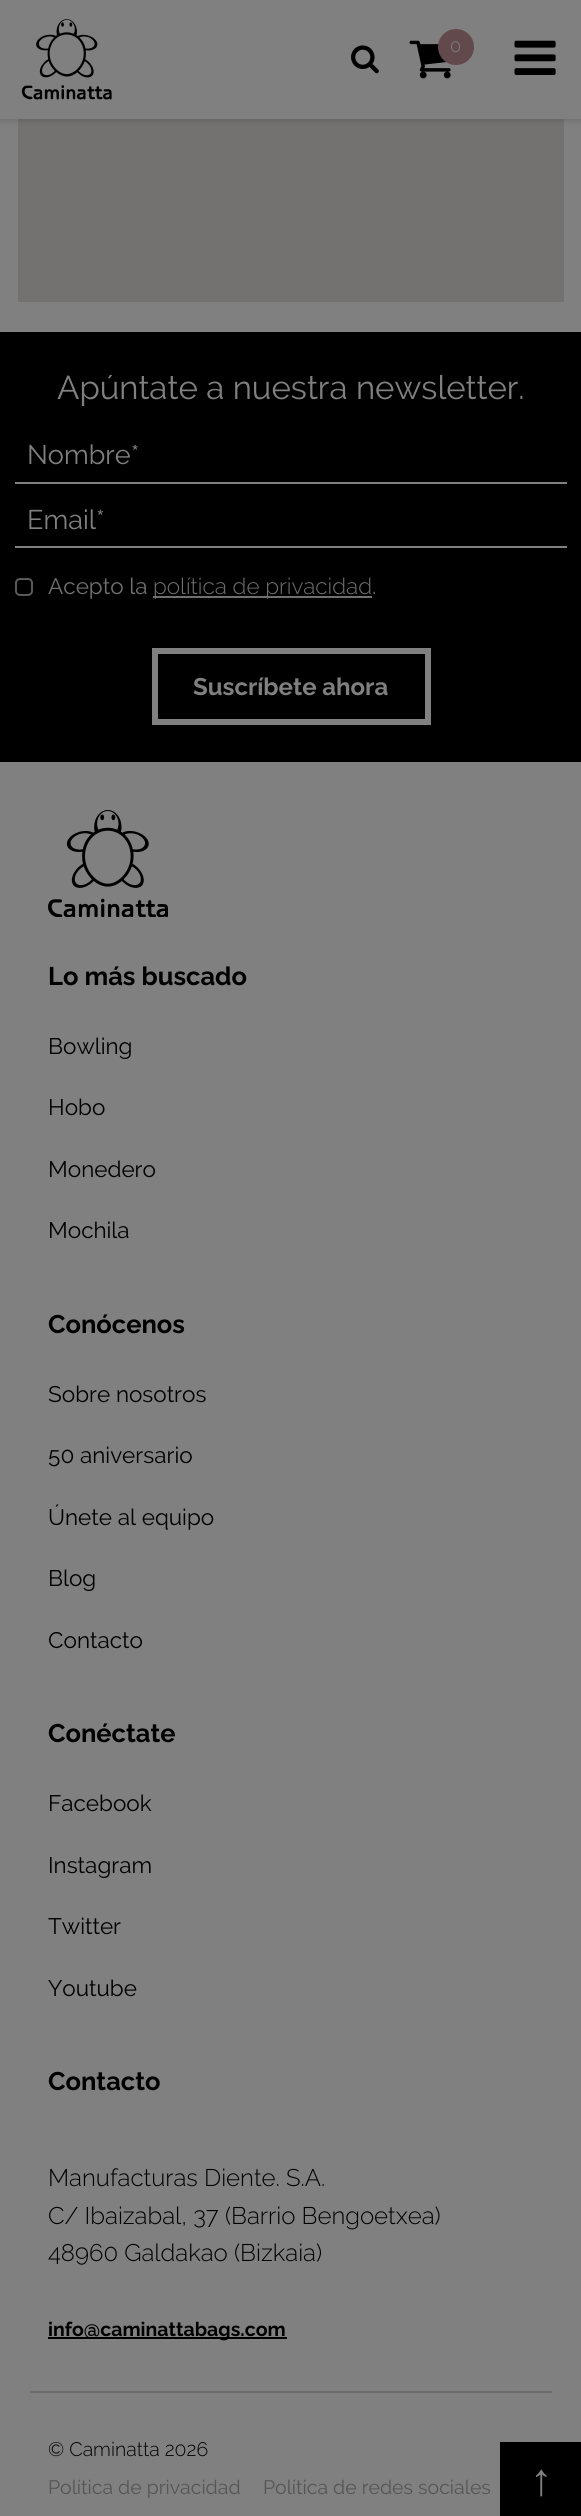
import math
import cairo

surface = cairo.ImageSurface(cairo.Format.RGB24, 581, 2516)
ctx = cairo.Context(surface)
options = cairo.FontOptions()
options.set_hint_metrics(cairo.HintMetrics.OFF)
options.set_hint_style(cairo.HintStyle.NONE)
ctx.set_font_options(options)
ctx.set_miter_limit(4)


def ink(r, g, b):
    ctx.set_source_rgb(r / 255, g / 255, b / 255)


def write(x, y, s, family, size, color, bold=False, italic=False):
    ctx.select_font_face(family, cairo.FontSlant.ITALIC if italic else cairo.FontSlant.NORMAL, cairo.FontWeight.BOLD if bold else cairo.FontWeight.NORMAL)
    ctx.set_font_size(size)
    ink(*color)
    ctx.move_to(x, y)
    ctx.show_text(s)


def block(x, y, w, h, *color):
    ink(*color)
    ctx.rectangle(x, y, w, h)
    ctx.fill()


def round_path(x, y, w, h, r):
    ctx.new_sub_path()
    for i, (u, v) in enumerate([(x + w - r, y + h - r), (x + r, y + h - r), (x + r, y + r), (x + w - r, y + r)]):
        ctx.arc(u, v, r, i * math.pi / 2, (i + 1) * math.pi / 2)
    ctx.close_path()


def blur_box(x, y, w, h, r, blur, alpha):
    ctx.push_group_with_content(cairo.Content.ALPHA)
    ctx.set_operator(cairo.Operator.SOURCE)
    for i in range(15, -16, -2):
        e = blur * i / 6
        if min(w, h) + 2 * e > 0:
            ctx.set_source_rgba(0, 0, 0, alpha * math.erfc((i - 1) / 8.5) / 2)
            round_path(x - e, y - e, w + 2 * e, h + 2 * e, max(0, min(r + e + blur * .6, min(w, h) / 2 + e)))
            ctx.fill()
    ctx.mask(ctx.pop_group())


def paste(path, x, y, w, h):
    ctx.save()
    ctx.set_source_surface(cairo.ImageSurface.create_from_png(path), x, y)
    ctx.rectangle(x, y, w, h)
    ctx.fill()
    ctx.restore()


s1 = dict(family="Raleway Light", size=18, color=(128, 128, 128))
s2 = dict(family="Raleway", size=33, color=(128, 128, 128))
s3 = dict(family="Raleway", size=27, color=(128, 128, 128))
s4 = dict(family="Raleway", size=22.5, color=(112, 112, 112))
s5 = dict(family="Raleway Light", size=22.5, color=(112, 112, 112))
s6 = dict(family="Raleway", size=24, color=(128, 128, 128), bold=True)
s7 = dict(family="Raleway", size=25.5, color=(0, 0, 0), bold=True)
s8 = dict(family="Raleway", size=22.5, color=(0, 0, 0))
s9 = dict(family="Raleway Light", size=24, color=(0, 0, 0))
s10 = dict(family="Raleway", size=19.5, color=(0, 0, 0), bold=True)
s11 = dict(family="Raleway Light", size=19.5, color=(0, 0, 0))
s12 = dict(family="Raleway", size=19.5, color=(85, 85, 85))
s13 = dict(family="Liberation Sans", size=45, color=(128, 128, 128), bold=True)

ink(128, 128, 128)
ctx.paint()
block(18, 119, 546, 183, 115, 114, 112)
ink(0, 0, 0)
blur_box(-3, -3, 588, 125, 0, 2, 0.1)
block(0, 0, 581, 119, 128, 128, 128)
paste("pic1.png", 21, 19, 91, 81)
paste("pic2.png", 351, 45, 28, 29)
paste("pic3.png", 409, 40, 42, 39)
ink(98, 74, 76)
ctx.arc(456, 47, 18, 0, 2 * math.pi)
ctx.fill()
write(450, 52, "0", **s1)
paste("pic4.png", 514, 40, 42, 35)
block(0, 332, 581, 430, 0, 0, 0)
write(57, 399, "Apúntate a nuestra newsletter.", **s2)
block(15, 482, 552, 2, 128, 128, 128)
write(27, 464, "Nombre*", **s3)
block(15, 546, 552, 2, 128, 128, 128)
write(27, 529, "Email*", **s3)
round_path(16, 579, 16, 16, 4)
ink(90, 90, 90)
ctx.stroke()
write(48, 594, "Acepto la", **s4)
block(153, 596, 219, 2, 112, 112, 112)
write(153, 594, "política de privacidad", **s5)
write(372, 594, ".", **s4)
ctx.rectangle(155, 651, 273, 71)
ink(128, 128, 128)
ctx.set_line_width(6)
ctx.stroke()
write(193, 695, "Suscríbete ahora", **s6)
paste("pic5.png", 48, 810, 120, 107)
write(48, 985, "Lo más buscado", **s7)
write(48, 1054, "Bowling", **s8)
write(48, 1115, "Hobo", **s8)
write(48, 1177, "Monedero", **s8)
write(48, 1238, "Mochila", **s8)
write(48, 1333, "Conócenos", **s7)
write(48, 1402, "Sobre nosotros", **s8)
write(48, 1463, "50 aniversario", **s8)
write(48, 1525, "Únete al equipo", **s8)
write(48, 1586, "Blog", **s8)
write(48, 1648, "Contacto", **s8)
write(48, 1742, "Conéctate", **s7)
write(48, 1811, "Facebook", **s8)
write(48, 1873, "Instagram", **s8)
write(48, 1934, "Twitter", **s8)
write(48, 1996, "Youtube", **s8)
write(48, 2090, "Contacto", **s7)
write(48, 2186, "Manufacturas Diente. S.A.", **s9)
write(48, 2224, "C/ Ibaizabal, 37 (Barrio Bengoetxea)", **s9)
write(48, 2261, "48960 Galdakao (Bizkaia)", **s9)
block(48, 2337, 239, 2, 0, 0, 0)
write(48, 2336, "info@caminattabags.com", **s10)
block(30, 2391, 522, 2, 108, 108, 108)
write(48, 2456, "© Caminatta 2026", **s11)
write(48, 2494, "Política de privacidad", **s12)
write(263, 2494, "Política de redes sociales", **s12)
block(500, 2442, 81, 74, 0, 0, 0)
write(530, 2495, "↑", **s13)
surface.write_to_png("screenshot.png")
